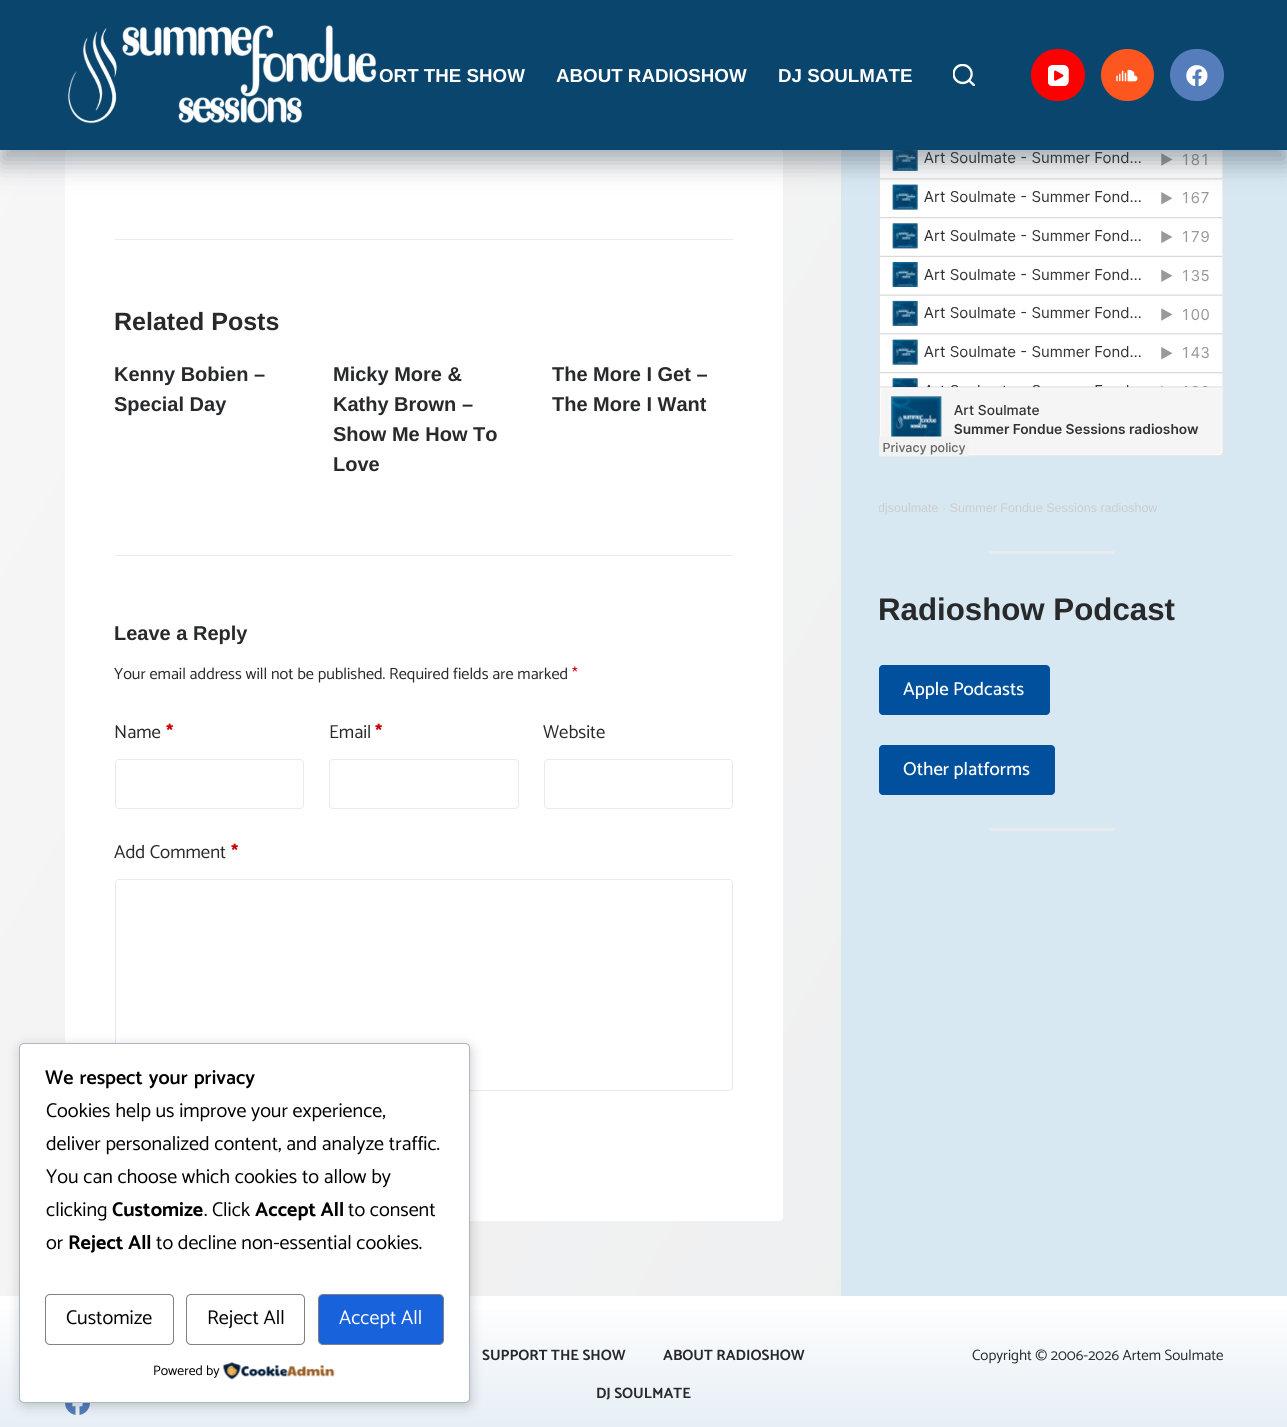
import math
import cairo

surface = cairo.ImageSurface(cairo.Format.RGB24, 1287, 1427)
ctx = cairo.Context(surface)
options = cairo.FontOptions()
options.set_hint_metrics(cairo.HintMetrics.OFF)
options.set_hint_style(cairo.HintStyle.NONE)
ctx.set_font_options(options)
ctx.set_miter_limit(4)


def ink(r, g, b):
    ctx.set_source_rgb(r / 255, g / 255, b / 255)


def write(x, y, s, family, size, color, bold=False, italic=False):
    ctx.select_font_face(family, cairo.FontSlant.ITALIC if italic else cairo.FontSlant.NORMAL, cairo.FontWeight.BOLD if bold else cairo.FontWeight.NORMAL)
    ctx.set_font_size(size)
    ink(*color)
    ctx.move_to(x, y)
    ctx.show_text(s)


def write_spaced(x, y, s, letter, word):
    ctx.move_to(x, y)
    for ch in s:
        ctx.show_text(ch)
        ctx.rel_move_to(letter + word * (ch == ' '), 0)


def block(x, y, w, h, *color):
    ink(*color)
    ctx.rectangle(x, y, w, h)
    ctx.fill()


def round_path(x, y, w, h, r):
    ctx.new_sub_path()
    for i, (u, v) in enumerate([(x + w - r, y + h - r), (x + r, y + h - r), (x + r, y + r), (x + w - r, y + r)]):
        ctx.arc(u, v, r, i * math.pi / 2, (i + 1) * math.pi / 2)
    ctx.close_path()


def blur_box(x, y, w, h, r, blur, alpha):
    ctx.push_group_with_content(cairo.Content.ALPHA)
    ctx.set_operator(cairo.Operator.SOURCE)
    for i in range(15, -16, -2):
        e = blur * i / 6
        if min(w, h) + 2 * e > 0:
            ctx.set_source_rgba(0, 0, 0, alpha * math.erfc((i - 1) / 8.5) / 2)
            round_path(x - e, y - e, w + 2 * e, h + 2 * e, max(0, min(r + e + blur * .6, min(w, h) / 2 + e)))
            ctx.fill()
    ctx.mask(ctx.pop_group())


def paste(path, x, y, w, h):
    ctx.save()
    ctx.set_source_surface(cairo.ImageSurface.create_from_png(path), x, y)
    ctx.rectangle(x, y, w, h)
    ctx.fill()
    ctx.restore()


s1 = dict(family="Liberation Sans", size=18.75, color=(255, 255, 255), bold=True)
s2 = dict(family="Liberation Sans", size=25, color=(40, 41, 42), bold=True)
s3 = dict(family="Liberation Sans", size=20, color=(40, 41, 42), bold=True)
s4 = dict(family="Catamaran", size=16.25, color=(40, 41, 42))
s5 = dict(family="Catamaran", size=16.25, color=(204, 0, 0))
s6 = dict(family="Catamaran", size=18.75, color=(40, 41, 42))
s7 = dict(family="Catamaran", size=18.75, color=(204, 0, 0), bold=True)
s8 = dict(family="Liberation Sans", size=12.5, color=(204, 204, 204))
s9 = dict(family="Liberation Sans", size=31.25, color=(40, 41, 42), bold=True)
s10 = dict(family="Catamaran Medium", size=18.75, color=(255, 255, 255))
s11 = dict(family="Catamaran", size=15, color=(40, 41, 42), bold=True)
s12 = dict(family="Catamaran", size=15, color=(40, 41, 42))
s13 = dict(family="Catamaran", size=20, color=(0, 0, 0))
s14 = dict(family="Catamaran", size=20, color=(0, 0, 0), bold=True)
s15 = dict(family="Catamaran", size=20, color=(255, 255, 255))
s16 = dict(family="Catamaran", size=13.75, color=(0, 0, 0))

ink(255, 255, 255)
ctx.paint()
gradient = cairo.LinearGradient(-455, -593, 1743, 676)
gradient.add_color_stop_rgba(0, 0.992, 0.984, 0.984, 1)
gradient.add_color_stop_rgba(1, 0.922, 0.929, 0.933, 1)
ctx.set_source(gradient)
ctx.rectangle(0, 150, 841, 1146)
ctx.fill()
ink(255, 255, 255)
round_path(65, -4, 718, 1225, 4)
ctx.fill()
block(841, 150, 446, 1146, 216, 232, 242)
paste("pic6.png", 879, 150, 345, 307)
ink(43, 61, 79)
blur_box(0, 13, 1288, 150, 0, 12.5, 0.42)
block(0, 0, 1287, 150, 10, 69, 109)
paste("pic1.png", 67, 25, 310, 99)
write(379, 82, "ORT THE SHOW", **s1)
write(556, 82, "ABOUT RADIOSHOW", **s1)
write(778, 82, "DJ SOULMATE", **s1)
paste("pic2.png", 953, 64, 22, 22)
ink(255, 0, 0)
round_path(1031, 49, 54, 52, 26)
ctx.fill()
paste("pic3.png", 1048, 65, 21, 21)
ink(253, 86, 31)
round_path(1101, 49, 53, 52, 26)
ctx.fill()
paste("pic4.png", 1116, 69, 22, 13)
ink(85, 125, 188)
round_path(1170, 49, 54, 52, 26)
ctx.fill()
paste("pic5.png", 1186, 65, 22, 21)
block(115, 239, 618, 1, 232, 235, 237)
write(114, 330, "Related Posts", **s2)
write(114, 381, "Kenny Bobien –", **s3)
write(114, 411, "Special Day", **s3)
write(333, 381, "Micky More &", **s3)
write(333, 411, "Kathy Brown –", **s3)
write(333, 441, "Show Me How To", **s3)
write(333, 471, "Love", **s3)
write(552, 381, "The More I Get –", **s3)
write(552, 411, "The More I Want", **s3)
block(115, 555, 618, 1, 232, 235, 237)
write(114, 640, "Leave a Reply", **s3)
write(114, 679, "Your email address will not be published. Required fields are marked", **s4)
write(572, 679, "*", **s5)
write(114, 738, "Name", **s6)
write(166, 738, "*", **s7)
round_path(115.5, 759.5, 188, 49, 3.5)
ink(232, 235, 237)
ctx.set_line_width(1)
ctx.stroke()
write(329, 738, "Email", **s6)
write(375, 738, "*", **s7)
round_path(329.5, 759.5, 189, 49, 3.5)
ink(232, 235, 237)
ctx.stroke()
write(543, 738, "Website", **s6)
round_path(544.5, 759.5, 188, 49, 3.5)
ink(232, 235, 237)
ctx.stroke()
write(114, 858, "Add Comment", **s6)
write(231, 858, "*", **s7)
round_path(115.5, 879.5, 617, 211, 3.5)
ink(232, 235, 237)
ctx.stroke()
ctx.save()
ctx.rectangle(879, 498, 345, 21)
ctx.clip()
write(878, 512, "djsoulmate", **s8)
ctx.restore()
write(942, 512, "· Summer Fondue Sessions radioshow", **s8)
block(989, 551, 125, 3, 232, 235, 237)
write(878, 620, "Radioshow Podcast", **s9)
ink(0, 80, 157)
round_path(879, 665, 171, 50, 4)
ctx.fill()
write(903, 695, "Apple Podcasts", **s10)
ink(0, 80, 157)
round_path(879, 745, 176, 50, 4)
ctx.fill()
write(903, 775, "Other platforms", **s10)
block(989, 828, 125, 3, 232, 235, 237)
gradient = cairo.LinearGradient(644, 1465, 644, 1296)
gradient.add_color_stop_rgba(0, 0.875, 0.914, 0.953, 1)
gradient.add_color_stop_rgba(1, 1, 1, 1, 1)
ctx.set_source(gradient)
ctx.rectangle(0, 1309, 1287, 118)
ctx.fill()
write(482, 1360, "SUPPORT THE SHOW", **s11)
write(663, 1360, "ABOUT RADIOSHOW", **s11)
write(596, 1398, "DJ SOULMATE", **s11)
write(972, 1360, "Copyright © 2006-2026 Artem Soulmate", **s12)
paste("pic7.png", 65, 1403, 25, 12)
ink(0, 0, 0)
blur_box(20, 1046, 451, 360, 5, 6, 0.2)
ink(255, 255, 255)
round_path(19.5, 1043.5, 450, 359, 4.5)
ctx.fill_preserve()
ink(171, 184, 195)
ctx.stroke()
ctx.select_font_face("Catamaran SemiBold")
ctx.set_font_size(20)
ink(0, 0, 0)
write_spaced(45, 1084, "We respect your privacy", 0, 1.5)
write(46, 1117, "Cookies help us improve your experience,", **s13)
write(46, 1150, "deliver personalized content, and analyze traffic.", **s13)
write(46, 1183, "You can choose which cookies to allow by", **s13)
write(46, 1216, "clicking", **s13)
write(112, 1216, "Customize", **s14)
write(204, 1216, ". Click", **s13)
write(255, 1216, "Accept All", **s14)
write(348, 1216, "to consent", **s13)
write(46, 1249, "or", **s13)
write(68, 1249, "Reject All", **s14)
write(156, 1249, "to decline non-essential cookies.", **s13)
round_path(45.5, 1294.5, 128, 50, 4.5)
ink(128, 128, 128)
ctx.stroke()
write(66, 1324, "Customize", **s13)
round_path(186.5, 1294.5, 118, 50, 4.5)
ink(128, 128, 128)
ctx.stroke()
write(207, 1324, "Reject All", **s13)
ink(24, 99, 220)
round_path(318.5, 1294.5, 125, 50, 4.5)
ctx.fill_preserve()
ink(128, 128, 128)
ctx.stroke()
write(339, 1324, "Accept All", **s15)
write(153, 1375, "Powered by", **s16)
paste("pic8.png", 223, 1362, 112, 18)
surface.write_to_png("screenshot.png")
